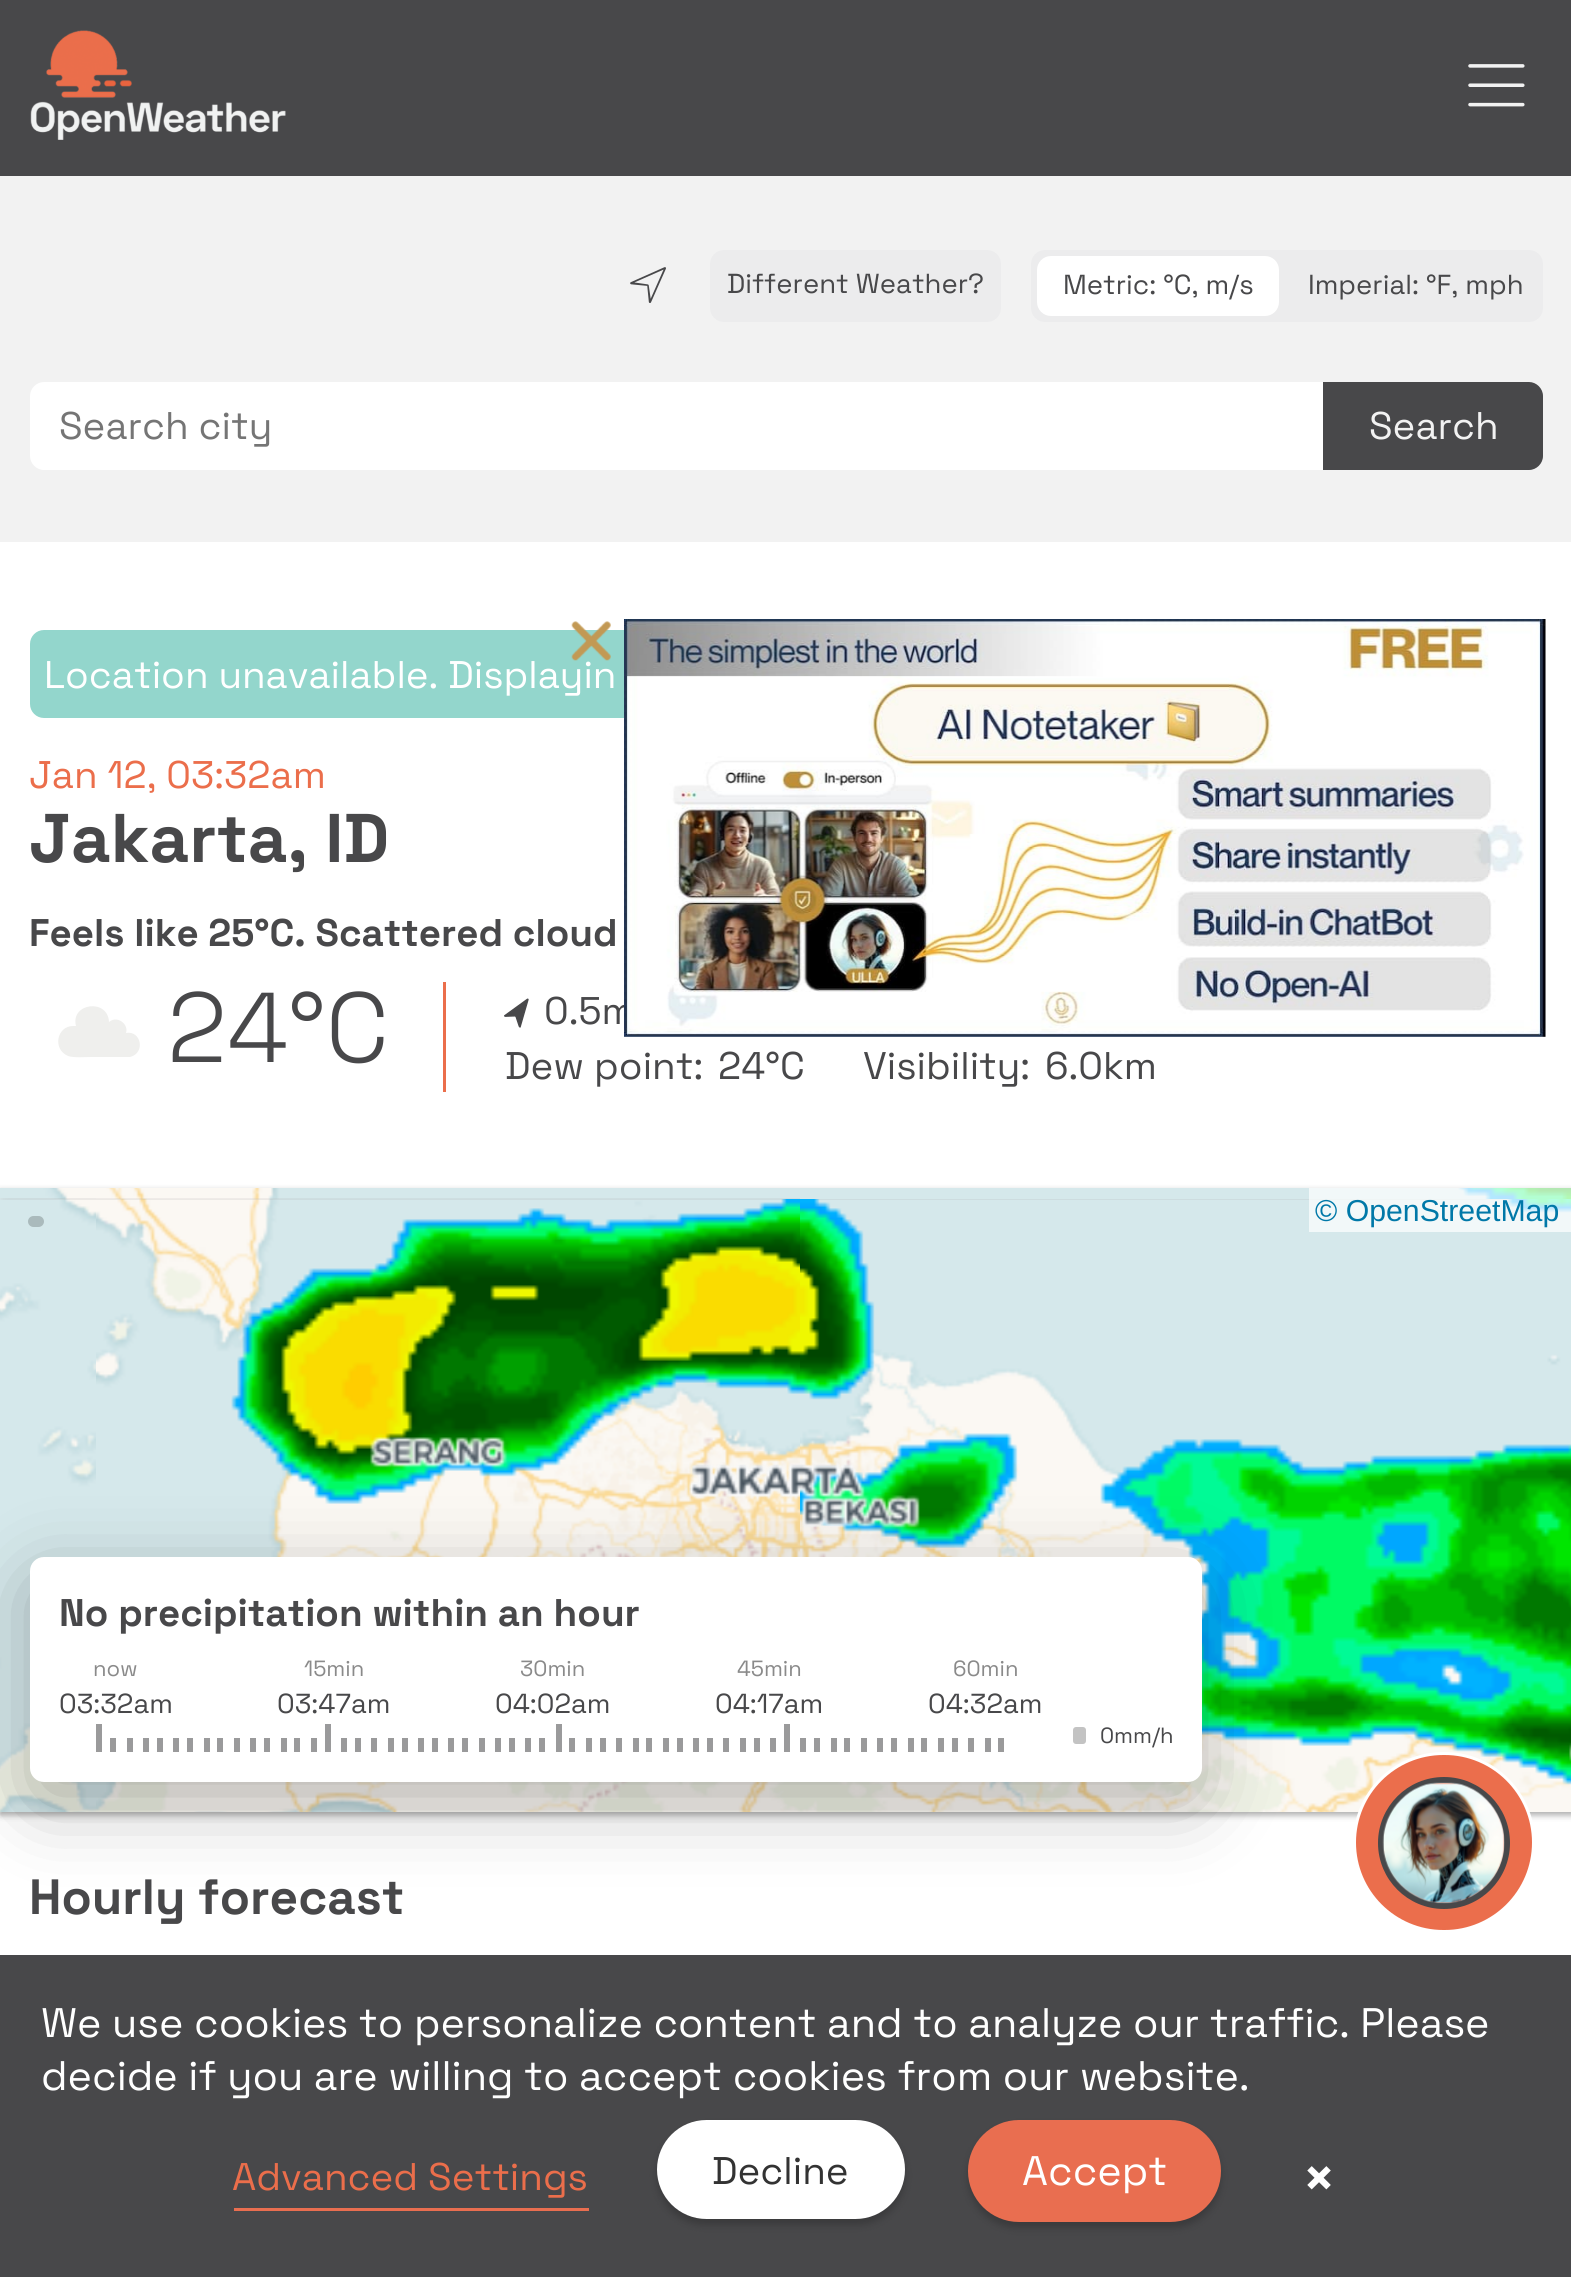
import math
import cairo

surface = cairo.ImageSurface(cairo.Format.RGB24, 1571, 2277)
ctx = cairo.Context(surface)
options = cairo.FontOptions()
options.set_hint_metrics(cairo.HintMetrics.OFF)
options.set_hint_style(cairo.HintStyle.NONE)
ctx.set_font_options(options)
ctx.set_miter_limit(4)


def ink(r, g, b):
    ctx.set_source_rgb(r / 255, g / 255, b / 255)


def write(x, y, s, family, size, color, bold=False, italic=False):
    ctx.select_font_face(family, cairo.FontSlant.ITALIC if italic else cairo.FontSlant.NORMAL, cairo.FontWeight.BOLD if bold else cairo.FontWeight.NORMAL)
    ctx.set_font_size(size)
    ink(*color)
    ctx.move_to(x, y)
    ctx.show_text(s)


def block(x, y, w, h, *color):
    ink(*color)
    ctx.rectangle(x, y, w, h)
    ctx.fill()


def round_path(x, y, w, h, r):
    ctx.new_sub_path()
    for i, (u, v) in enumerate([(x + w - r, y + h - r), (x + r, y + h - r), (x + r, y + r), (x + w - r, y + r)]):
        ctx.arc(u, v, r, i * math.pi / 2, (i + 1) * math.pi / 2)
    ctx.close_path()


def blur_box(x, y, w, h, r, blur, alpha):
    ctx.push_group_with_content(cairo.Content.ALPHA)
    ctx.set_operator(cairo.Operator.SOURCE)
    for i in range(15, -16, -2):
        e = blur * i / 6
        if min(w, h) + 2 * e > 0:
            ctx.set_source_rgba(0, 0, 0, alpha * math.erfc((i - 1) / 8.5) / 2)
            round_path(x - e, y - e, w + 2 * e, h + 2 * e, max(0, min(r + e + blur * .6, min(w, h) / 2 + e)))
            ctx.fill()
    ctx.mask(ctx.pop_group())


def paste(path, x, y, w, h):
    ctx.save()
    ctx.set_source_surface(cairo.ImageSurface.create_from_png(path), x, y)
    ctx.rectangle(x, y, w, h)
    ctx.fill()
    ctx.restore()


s1 = dict(family="Space Grotesk", size=27.5, color=(72, 72, 74))
s2 = dict(family="Space Grotesk", size=38.5, color=(117, 117, 117))
s3 = dict(family="Space Grotesk", size=38.5, color=(242, 242, 242))
s4 = dict(family="Space Grotesk", size=38.5, color=(255, 255, 255))
s5 = dict(family="Space Grotesk", size=38.5, color=(235, 110, 75))
s6 = dict(family="Space Grotesk", size=68.75, color=(72, 72, 74), bold=True)
s7 = dict(family="Space Grotesk", size=38.5, color=(72, 72, 74), bold=True)
s8 = dict(family="Space Grotesk Light", size=99, color=(72, 72, 74))
s9 = dict(family="Space Grotesk", size=38.5, color=(72, 72, 74))
s10 = dict(family="Liberation Sans", size=30.25, color=(0, 120, 168))
s11 = dict(family="Space Grotesk", size=22, color=(138, 138, 138))
s12 = dict(family="Space Grotesk", size=22, color=(72, 72, 74))
s13 = dict(family="Space Grotesk", size=49.5, color=(72, 72, 74), bold=True)
s14 = dict(family="Space Grotesk", size=41.25, color=(255, 255, 255))
s15 = dict(family="Space Grotesk", size=38.5, color=(51, 51, 51))
s16 = dict(family="Space Grotesk", size=55, color=(255, 255, 255), bold=True)

ink(255, 255, 255)
ctx.paint()
block(0, 0, 1571, 176, 72, 72, 74)
paste("pic1.png", 30, 30, 256, 110)
paste("pic2.png", 1468, 64, 57, 43)
block(0, 176, 1571, 366, 242, 242, 242)
paste("pic3.png", 630, 267, 36, 36)
ink(236, 236, 237)
round_path(710, 250, 291, 72, 14)
ctx.fill()
write(727, 293, "Different Weather?", **s1)
ink(236, 236, 237)
round_path(1031, 250, 512, 72, 14)
ctx.fill()
ink(255, 255, 255)
round_path(1037, 256, 242, 60, 14)
ctx.fill()
write(1063, 294, "Metric: °C, m/s", **s1)
write(1308, 294, "Imperial: °F, mph", **s1)
ink(255, 255, 255)
ctx.new_path()
ctx.move_to(44, 382)
ctx.line_to(1323, 382)
ctx.line_to(1323, 470)
ctx.line_to(44, 470)
ctx.curve_to(36.5, 470, 30, 463.5, 30, 456)
ctx.line_to(30, 396)
ctx.curve_to(30, 388.5, 36.5, 382, 44, 382)
ctx.close_path()
ctx.fill()
write(59, 439, "Search city", **s2)
ink(72, 72, 74)
ctx.new_path()
ctx.move_to(1323, 382)
ctx.line_to(1529, 382)
ctx.curve_to(1536.5, 382, 1543, 388.5, 1543, 396)
ctx.line_to(1543, 456)
ctx.curve_to(1543, 463.5, 1536.5, 470, 1529, 470)
ctx.line_to(1323, 470)
ctx.close_path()
ctx.fill()
write(1369, 439, "Search", **s3)
ink(147, 214, 204)
round_path(30, 630, 1513, 88, 14)
ctx.fill()
write(44, 688, "Location unavailable. Displayin", **s4)
write(29, 788, "Jan 12, 03:32am", **s5)
write(29, 862, "Jakarta, ID", **s6)
write(29, 946, "Feels like 25°C. Scattered cloud", **s7)
ink(239, 239, 237)
ctx.new_path()
ctx.move_to(73, 1026)
ctx.line_to(76, 1026)
ctx.curve_to(70, 1003, 108, 998, 109, 1022)
ctx.curve_to(117, 1015, 129, 1024, 126, 1033)
ctx.curve_to(141, 1030, 146, 1053, 130, 1057)
ctx.line_to(92, 1057)
ctx.curve_to(85, 1057, 74, 1058, 68, 1056)
ctx.curve_to(52, 1049, 57, 1026, 73, 1026)
ctx.fill()
write(167, 1062, "24°C", **s8)
block(443, 982, 3, 110, 235, 110, 75)
paste("pic4.png", 504, 998, 25, 30)
write(544, 1024, "0.5m", **s9)
write(505, 1079, "Dew point:", **s9)
write(718, 1079, "24°C", **s9)
write(863, 1079, "Visibility:", **s9)
write(1045, 1079, "6.0km", **s9)
ink(0, 0, 0)
blur_box(0, 1191, 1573, 624, 0, 3, 0.24)
blur_box(0, 1191, 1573, 624, 0, 4, 0.12)
paste("pic5.png", 0, 1188, 96, 11)
paste("pic6.png", 96, 1188, 704, 11)
block(800, 1188, 691, 11, 213, 232, 235)
paste("pic7.png", 0, 1199, 96, 613)
paste("pic8.png", 96, 1198, 704, 614)
paste("pic9.png", 800, 1199, 704, 613)
paste("pic10.png", 1504, 1199, 67, 613)
paste("pic11.png", 1458, 1188, 113, 11)
paste("pic12.png", 231, 1199, 569, 305)
paste("pic13.png", 800, 1199, 771, 586)
paste("pic14.png", 370, 1437, 430, 61)
paste("pic15.png", 800, 1462, 120, 66)
paste("pic16.png", 1569, 1743, 2, 19)
ink(170, 186, 188)
round_path(28, 1216, 16, 11, 5.5)
ctx.fill()
ctx.set_source_rgba(1, 1, 1, 0.7)
ctx.rectangle(1309, 1188, 262, 44)
ctx.fill()
write(1315, 1221, "© OpenStreetMap", **s10)
ink(0, 0, 0)
blur_box(30, 1579, 1172, 225, 14, 38.5, 0.28)
ink(255, 255, 255)
round_path(30, 1557, 1172, 225, 14)
ctx.fill()
write(59, 1626, "No precipitation within an hour", **s7)
write(93, 1676, "now", **s11)
write(59, 1713, "03:32am", **s1)
write(304, 1676, "15min", **s11)
write(277, 1713, "03:47am", **s1)
write(520, 1676, "30min", **s11)
write(495, 1713, "04:02am", **s1)
write(737, 1676, "45min", **s11)
write(715, 1713, "04:17am", **s1)
write(953, 1676, "60min", **s11)
write(928, 1713, "04:32am", **s1)
block(96, 1724, 6, 28, 154, 154, 155)
block(110, 1738, 6, 14, 154, 154, 155)
block(127, 1738, 6, 14, 154, 154, 155)
block(143, 1738, 6, 14, 154, 154, 155)
block(157, 1738, 6, 14, 154, 154, 155)
block(173, 1738, 6, 14, 154, 154, 155)
block(187, 1738, 6, 14, 154, 154, 155)
block(204, 1738, 6, 14, 154, 154, 155)
block(217, 1738, 6, 14, 154, 154, 155)
block(234, 1738, 6, 14, 154, 154, 155)
block(250, 1738, 6, 14, 154, 154, 155)
block(264, 1738, 6, 14, 154, 154, 155)
block(281, 1738, 6, 14, 154, 154, 155)
block(294, 1738, 6, 14, 154, 154, 155)
block(311, 1738, 6, 14, 154, 154, 155)
block(325, 1724, 6, 28, 154, 154, 155)
block(341, 1738, 6, 14, 154, 154, 155)
block(355, 1738, 6, 14, 154, 154, 155)
block(371, 1738, 6, 14, 154, 154, 155)
block(388, 1738, 6, 14, 154, 154, 155)
block(402, 1738, 6, 14, 154, 154, 155)
block(418, 1738, 6, 14, 154, 154, 155)
block(432, 1738, 6, 14, 154, 154, 155)
block(448, 1738, 6, 14, 154, 154, 155)
block(462, 1738, 6, 14, 154, 154, 155)
block(479, 1738, 6, 14, 154, 154, 155)
block(495, 1738, 6, 14, 154, 154, 155)
block(509, 1738, 6, 14, 154, 154, 155)
block(525, 1738, 6, 14, 154, 154, 155)
block(539, 1738, 6, 14, 154, 154, 155)
block(556, 1724, 6, 28, 154, 154, 155)
block(569, 1738, 6, 14, 154, 154, 155)
block(586, 1738, 6, 14, 154, 154, 155)
block(600, 1738, 6, 14, 154, 154, 155)
block(616, 1738, 6, 14, 154, 154, 155)
block(633, 1738, 6, 14, 154, 154, 155)
block(646, 1738, 6, 14, 154, 154, 155)
block(663, 1738, 6, 14, 154, 154, 155)
block(677, 1738, 6, 14, 154, 154, 155)
block(693, 1738, 6, 14, 154, 154, 155)
block(707, 1738, 6, 14, 154, 154, 155)
block(723, 1738, 6, 14, 154, 154, 155)
block(740, 1738, 6, 14, 154, 154, 155)
block(754, 1738, 6, 14, 154, 154, 155)
block(770, 1738, 6, 14, 154, 154, 155)
block(784, 1724, 6, 28, 154, 154, 155)
block(800, 1738, 6, 14, 154, 154, 155)
block(814, 1738, 6, 14, 154, 154, 155)
block(831, 1738, 6, 14, 154, 154, 155)
block(844, 1738, 6, 14, 154, 154, 155)
block(861, 1738, 6, 14, 154, 154, 155)
block(877, 1738, 6, 14, 154, 154, 155)
block(891, 1738, 6, 14, 154, 154, 155)
block(908, 1738, 6, 14, 154, 154, 155)
block(921, 1738, 6, 14, 154, 154, 155)
block(938, 1738, 6, 14, 154, 154, 155)
block(952, 1738, 6, 14, 154, 154, 155)
block(968, 1738, 6, 14, 154, 154, 155)
block(985, 1738, 6, 14, 154, 154, 155)
block(998, 1738, 6, 14, 154, 154, 155)
ink(195, 195, 195)
round_path(1073, 1727, 13, 17, 3)
ctx.fill()
write(1100, 1743, "0mm/h", **s12)
write(29, 1914, "Hourly forecast", **s13)
paste("pic17.png", 571, 621, 40, 40)
paste("pic18.png", 624, 619, 922, 418)
ink(235, 110, 76)
round_path(1354.5, 1753.5, 179, 178, 89)
ctx.fill_preserve()
ink(255, 255, 255)
ctx.set_line_width(3)
ctx.stroke()
ctx.arc(1444, 1843, 63, 0, 2 * math.pi)
ink(72, 72, 74)
ctx.set_line_width(6)
ctx.stroke()
paste("pic19.png", 1382, 1782, 123, 122)
block(0, 1955, 1571, 322, 72, 72, 74)
write(41, 2037, "We use cookies to personalize content and to analyze our traffic. Please", **s14)
write(41, 2090, "decide if you are willing to accept cookies from our website.", **s14)
block(234, 2208, 355, 3, 233, 110, 80)
write(232, 2190, "Advanced Settings", **s5)
ink(0, 0, 0)
blur_box(657, 2126, 248, 99, 49.5, 4, 0.2)
ink(255, 255, 255)
round_path(657, 2120, 248, 99, 49.5)
ctx.fill()
write(712, 2184, "Decline", **s15)
ink(0, 0, 0)
blur_box(968, 2126, 253, 102, 51, 4, 0.2)
ink(233, 110, 80)
round_path(968, 2120, 253, 102, 51)
ctx.fill()
write(1022, 2185, "Accept", **s14)
write(1302, 2197, "×", **s16)
surface.write_to_png("screenshot.png")
